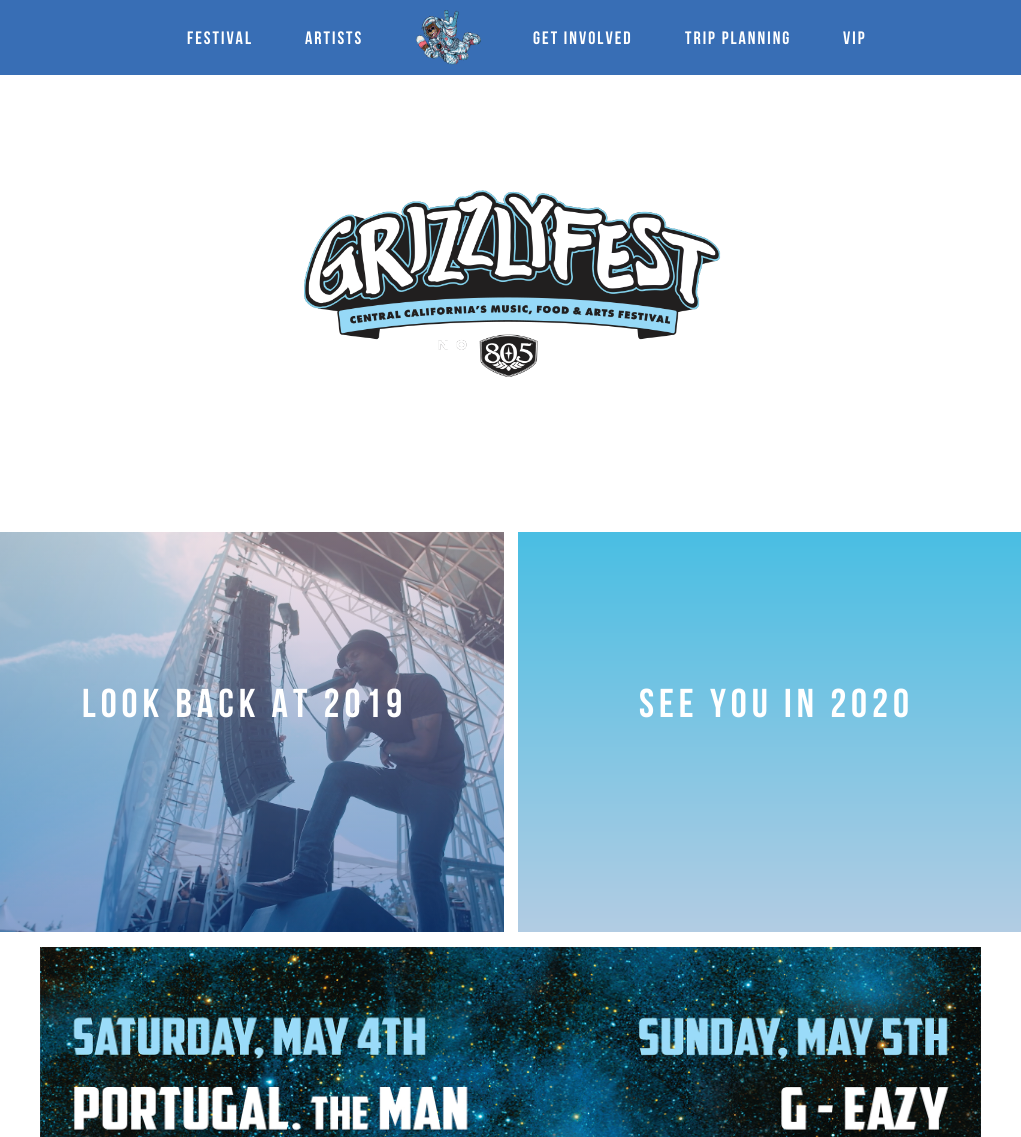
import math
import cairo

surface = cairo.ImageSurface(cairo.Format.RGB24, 1021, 1137)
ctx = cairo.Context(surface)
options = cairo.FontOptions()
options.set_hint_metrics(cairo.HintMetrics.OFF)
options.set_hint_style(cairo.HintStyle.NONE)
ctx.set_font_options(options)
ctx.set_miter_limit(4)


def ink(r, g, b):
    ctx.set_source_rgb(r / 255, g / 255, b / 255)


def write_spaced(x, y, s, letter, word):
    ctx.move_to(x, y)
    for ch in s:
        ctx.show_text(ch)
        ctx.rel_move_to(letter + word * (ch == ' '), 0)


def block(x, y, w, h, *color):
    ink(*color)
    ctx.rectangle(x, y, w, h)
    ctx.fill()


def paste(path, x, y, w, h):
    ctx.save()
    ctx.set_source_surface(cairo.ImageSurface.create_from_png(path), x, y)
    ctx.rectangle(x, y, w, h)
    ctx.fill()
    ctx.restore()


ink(255, 255, 255)
ctx.paint()
block(0, 0, 1021, 75, 56, 110, 181)
ctx.select_font_face("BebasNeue")
ctx.set_font_size(18)
ink(255, 255, 255)
write_spaced(187, 44, "FESTIVAL", 2, 0)
write_spaced(305, 44, "ARTISTS", 2, 0)
paste("pic1.png", 416, 10, 65, 55)
write_spaced(533, 44, "GET INVOLVED", 2, 0)
write_spaced(685, 44, "TRIP PLANNING", 2, 0)
write_spaced(843, 44, "VIP", 2, 0)
paste("pic2.png", 304, 190, 417, 187)
paste("pic3.png", 0, 532, 504, 400)
ctx.set_font_size(40.25)
write_spaced(82, 717, "Look Back At 2019", 5, 0)
gradient = cairo.LinearGradient(777, 532, 777, 932)
gradient.add_color_stop_rgba(0, 0.286, 0.745, 0.89, 1)
gradient.add_color_stop_rgba(1, 0.698, 0.8, 0.89, 1)
ctx.set_source(gradient)
ctx.rectangle(518, 532, 503, 400)
ctx.fill()
ink(255, 255, 255)
write_spaced(639, 717, "See You In 2020", 5, 0)
paste("pic4.png", 40, 947, 941, 190)
surface.write_to_png("screenshot.png")
